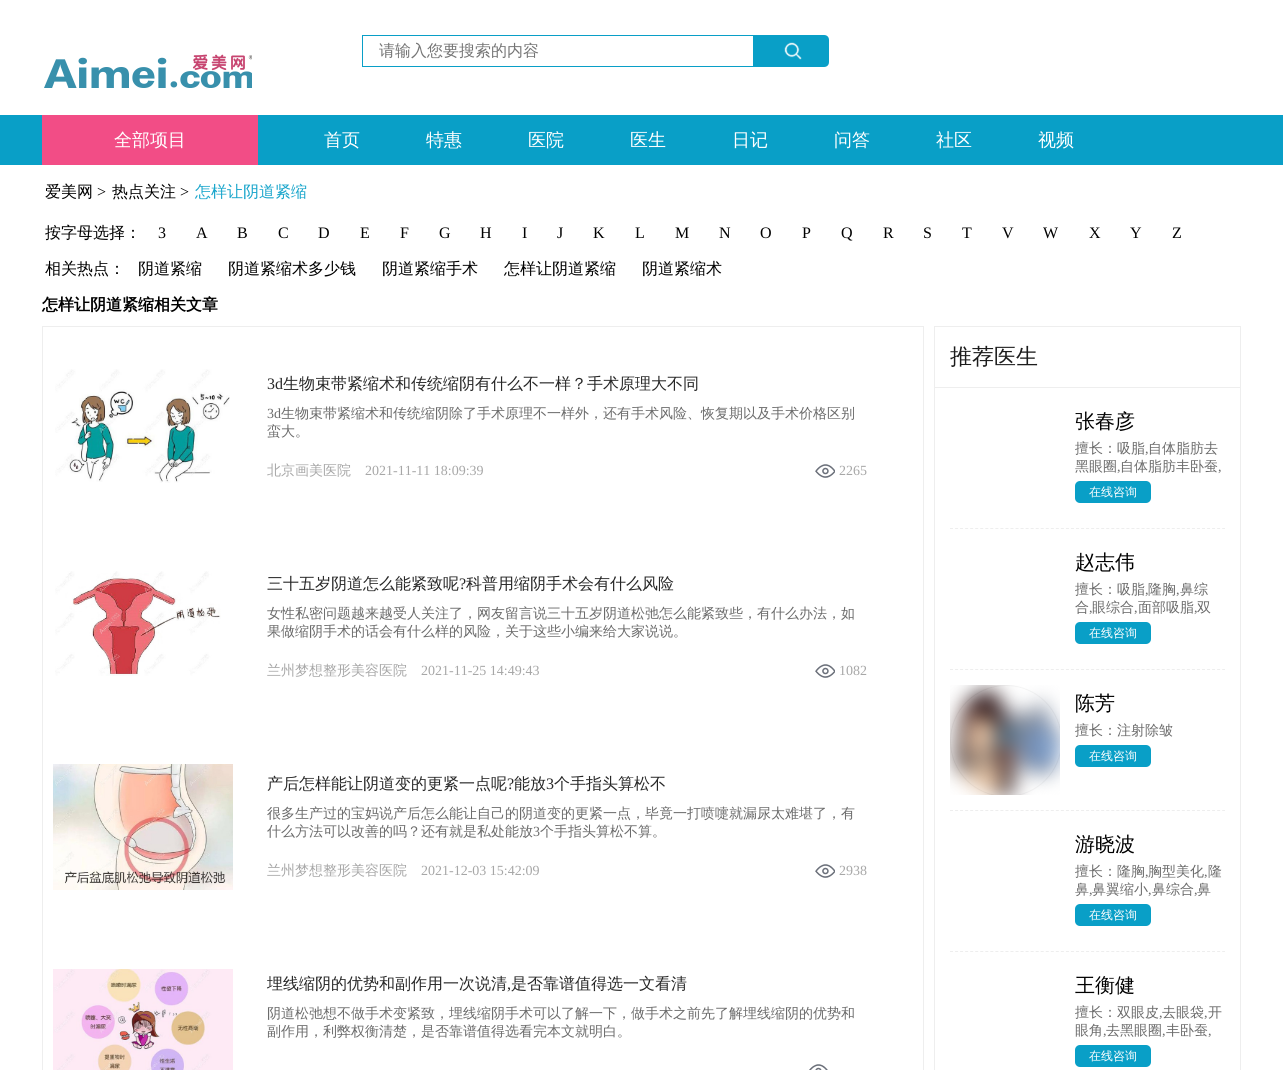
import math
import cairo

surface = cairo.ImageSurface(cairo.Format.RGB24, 1283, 1070)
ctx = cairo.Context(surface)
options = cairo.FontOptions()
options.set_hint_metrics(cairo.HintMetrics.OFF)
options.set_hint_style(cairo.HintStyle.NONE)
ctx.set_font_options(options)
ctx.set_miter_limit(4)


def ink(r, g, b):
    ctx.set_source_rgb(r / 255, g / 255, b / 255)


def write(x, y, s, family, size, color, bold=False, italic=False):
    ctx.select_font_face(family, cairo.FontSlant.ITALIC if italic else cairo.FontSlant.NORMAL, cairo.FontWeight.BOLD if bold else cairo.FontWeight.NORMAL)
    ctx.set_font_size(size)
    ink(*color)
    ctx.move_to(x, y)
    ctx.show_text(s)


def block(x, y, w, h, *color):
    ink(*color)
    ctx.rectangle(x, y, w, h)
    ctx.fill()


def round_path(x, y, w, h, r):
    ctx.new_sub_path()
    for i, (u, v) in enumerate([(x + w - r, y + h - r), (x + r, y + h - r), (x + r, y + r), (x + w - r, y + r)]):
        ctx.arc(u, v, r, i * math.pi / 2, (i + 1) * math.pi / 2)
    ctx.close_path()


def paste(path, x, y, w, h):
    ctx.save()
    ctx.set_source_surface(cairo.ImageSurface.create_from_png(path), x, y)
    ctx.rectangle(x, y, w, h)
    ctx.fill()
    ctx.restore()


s1 = dict(family="WenQuanYi Zen Hei Medium", size=16, color=(117, 117, 117))
s2 = dict(family="WenQuanYi Zen Hei Medium", size=18, color=(255, 255, 255))
s3 = dict(family="WenQuanYi Zen Hei Medium", size=16, color=(0, 0, 0))
s4 = dict(family="Liberation Serif", size=16, color=(0, 0, 0))
s5 = dict(family="WenQuanYi Zen Hei Medium", size=16, color=(24, 165, 203))
s6 = dict(family="WenQuanYi Zen Hei", size=16, color=(0, 0, 0), bold=True)
s7 = dict(family="Liberation Serif", size=16, color=(39, 39, 39))
s8 = dict(family="WenQuanYi Zen Hei Medium", size=16, color=(39, 39, 39))
s9 = dict(family="Liberation Serif", size=14, color=(107, 107, 107))
s10 = dict(family="WenQuanYi Zen Hei Medium", size=14, color=(107, 107, 107))
s11 = dict(family="WenQuanYi Zen Hei Medium", size=14, color=(167, 167, 167))
s12 = dict(family="Liberation Serif", size=14, color=(167, 167, 167))
s13 = dict(family="WenQuanYi Zen Hei Medium", size=22, color=(28, 28, 28))
s14 = dict(family="WenQuanYi Zen Hei Medium", size=20, color=(0, 0, 0))
s15 = dict(family="WenQuanYi Zen Hei Medium", size=12, color=(255, 255, 255))

ink(255, 255, 255)
ctx.paint()
ctx.rectangle(362.5, 35.5, 391, 31)
ink(9, 159, 199)
ctx.set_line_width(1)
ctx.stroke()
write(379, 56, "请输入您要搜索的内容", **s1)
ink(9, 159, 199)
ctx.new_path()
ctx.move_to(754, 35)
ctx.line_to(824, 35)
ctx.curve_to(827, 35, 829, 37, 829, 40)
ctx.line_to(829, 62)
ctx.curve_to(829, 65, 827, 67, 824, 67)
ctx.line_to(754, 67)
ctx.close_path()
ctx.fill()
paste("pic1.png", 784, 42, 18, 18)
paste("pic2.png", 43, 54, 209, 36)
block(0, 115, 1283, 50, 9, 159, 199)
block(42, 115, 216, 50, 242, 77, 134)
write(114, 146, "全部项目", **s2)
write(324, 146, "首页", **s2)
write(426, 146, "特惠", **s2)
write(528, 146, "医院", **s2)
write(630, 146, "医生", **s2)
write(732, 146, "日记", **s2)
write(834, 146, "问答", **s2)
write(936, 146, "社区", **s2)
write(1038, 146, "视频", **s2)
write(45, 197, "爱美网", **s3)
write(97, 197, ">", **s4)
write(112, 197, "热点关注", **s3)
write(180, 197, ">", **s4)
write(195, 197, "怎样让阴道紧缩", **s5)
write(45, 238, "按字母选择：", **s3)
write(158, 238, "3", **s4)
write(196, 238, "A", **s4)
write(237, 238, "B", **s4)
write(278, 238, "C", **s4)
write(318, 238, "D", **s4)
write(360, 238, "E", **s4)
write(400, 238, "F", **s4)
write(439, 238, "G", **s4)
write(480, 238, "H", **s4)
write(522, 238, "I", **s4)
write(557, 238, "J", **s4)
write(593, 238, "K", **s4)
write(635, 238, "L", **s4)
write(675, 238, "M", **s4)
write(719, 238, "N", **s4)
write(760, 238, "O", **s4)
write(802, 238, "P", **s4)
write(841, 238, "Q", **s4)
write(883, 238, "R", **s4)
write(923, 238, "S", **s4)
write(962, 238, "T", **s4)
write(1002, 238, "V", **s4)
write(1043, 238, "W", **s4)
write(1089, 238, "X", **s4)
write(1130, 238, "Y", **s4)
write(1172, 238, "Z", **s4)
write(45, 274, "相关热点：", **s3)
write(138, 274, "阴道紧缩", **s3)
write(228, 274, "阴道紧缩术多少钱", **s3)
write(382, 274, "阴道紧缩手术", **s3)
write(504, 274, "怎样让阴道紧缩", **s3)
write(642, 274, "阴道紧缩术", **s3)
write(42, 310, "怎样让阴道紧缩相关文章", **s6)
ctx.rectangle(42.5, 326.5, 881, 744)
ink(238, 238, 238)
ctx.stroke()
paste("pic3.png", 55, 369, 175, 114)
write(267, 389, "3d", **s7)
write(283, 389, "生物束带紧缩术和传统缩阴有什么不一样？手术原理大不同", **s8)
write(267, 418, "3d", **s9)
write(281, 418, "生物束带紧缩术和传统缩阴除了手术原理不一样外，还有手术风险、恢复期以及手术价格区别", **s10)
write(267, 436, "蛮大。", **s10)
write(267, 475, "北京画美医院", **s11)
write(365, 475, "2021-11-11 18:09:39", **s12)
paste("pic4.png", 815, 464, 20, 14)
write(839, 475, "2265", **s12)
paste("pic5.png", 55, 571, 166, 105)
write(267, 589, "三十五岁阴道怎么能紧致呢", **s8)
write(459, 589, "?", **s7)
write(466, 589, "科普用缩阴手术会有什么风险", **s8)
write(267, 618, "女性私密问题越来越受人关注了，网友留言说三十五岁阴道松弛怎么能紧致些，有什么办法，如", **s10)
write(267, 636, "果做缩阴手术的话会有什么样的风险，关于这些小编来给大家说说。", **s10)
write(267, 675, "兰州梦想整形美容医院", **s11)
write(421, 675, "2021-11-25 14:49:43", **s12)
paste("pic4.png", 815, 664, 20, 14)
write(839, 675, "1082", **s12)
paste("pic6.png", 53, 764, 180, 126)
write(267, 789, "产后怎样能让阴道变的更紧一点呢", **s8)
write(507, 789, "?", **s7)
write(514, 789, "能放", **s8)
write(546, 789, "3", **s7)
write(554, 789, "个手指头算松不", **s8)
write(267, 818, "很多生产过的宝妈说产后怎么能让自己的阴道变的更紧一点，毕竟一打喷嚏就漏尿太难堪了，有", **s10)
write(267, 836, "什么方法可以改善的吗？还有就是私处能放", **s10)
write(533, 836, "3", **s9)
write(540, 836, "个手指头算松不算。", **s10)
write(267, 875, "兰州梦想整形美容医院", **s11)
write(421, 875, "2021-12-03 15:42:09", **s12)
paste("pic4.png", 815, 864, 20, 14)
write(839, 875, "2938", **s12)
paste("pic7.png", 53, 969, 180, 101)
write(267, 989, "埋线缩阴的优势和副作用一次说清", **s8)
write(507, 989, ",", **s7)
write(511, 989, "是否靠谱值得选一文看清", **s8)
write(267, 1018, "阴道松弛想不做手术变紧致，埋线缩阴手术可以了解一下，做手术之前先了解埋线缩阴的优势和", **s10)
write(267, 1036, "副作用，利弊权衡清楚，是否靠谱值得选看完本文就明白。", **s10)
paste("pic8.png", 809, 1064, 19, 6)
ctx.rectangle(934.5, 326.5, 306, 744)
ink(238, 238, 238)
ctx.stroke()
block(935, 387, 305, 1, 238, 238, 238)
write(950, 364, "推荐医生", **s13)
ctx.new_path()
ctx.move_to(950, 528.5)
ctx.line_to(1225, 528.5)
ink(238, 238, 238)
ctx.set_dash([3, 2.04])
ctx.stroke()
write(1075, 428, "张春彦", **s14)
write(1075, 453, "擅长：吸脂", **s10)
write(1145, 453, ",", **s9)
write(1148, 453, "自体脂肪去", **s10)
write(1075, 471, "黑眼圈", **s10)
write(1117, 471, ",", **s9)
write(1120, 471, "自体脂肪丰卧蚕", **s10)
write(1218, 471, ",", **s9)
ink(9, 159, 199)
round_path(1075, 481, 76, 22, 5)
ctx.fill()
write(1089, 496, "在线咨询", **s15)
ctx.new_path()
ctx.move_to(950, 669.5)
ctx.line_to(1225, 669.5)
ink(238, 238, 238)
ctx.stroke()
write(1075, 569, "赵志伟", **s14)
write(1075, 594, "擅长：吸脂", **s10)
write(1145, 594, ",", **s9)
write(1148, 594, "隆胸", **s10)
write(1176, 594, ",", **s9)
write(1180, 594, "鼻综", **s10)
write(1075, 612, "合", **s10)
write(1089, 612, ",", **s9)
write(1092, 612, "眼综合", **s10)
write(1134, 612, ",", **s9)
write(1138, 612, "面部吸脂", **s10)
write(1194, 612, ",", **s9)
write(1197, 612, "双", **s10)
ink(9, 159, 199)
round_path(1075, 622, 76, 22, 5)
ctx.fill()
write(1089, 637, "在线咨询", **s15)
ctx.new_path()
ctx.move_to(950, 810.5)
ctx.line_to(1225, 810.5)
ink(238, 238, 238)
ctx.stroke()
ctx.save()
ctx.rectangle(950, 685, 110, 110)
ctx.clip()
ctx.arc(1006, 741, 55.5, 0, 2 * math.pi)
ctx.set_dash([])
ctx.stroke()
ctx.restore()
paste("pic9.png", 950, 685, 110, 110)
write(1075, 710, "陈芳", **s14)
write(1075, 735, "擅长：注射除皱", **s10)
ink(9, 159, 199)
round_path(1075, 745, 76, 22, 5)
ctx.fill()
write(1089, 760, "在线咨询", **s15)
ctx.new_path()
ctx.move_to(950, 951.5)
ctx.line_to(1225, 951.5)
ink(238, 238, 238)
ctx.stroke()
write(1075, 851, "游晓波", **s14)
write(1075, 876, "擅长：隆胸", **s10)
write(1145, 876, ",", **s9)
write(1148, 876, "胸型美化", **s10)
write(1204, 876, ",", **s9)
write(1208, 876, "隆", **s10)
write(1075, 894, "鼻", **s10)
write(1089, 894, ",", **s9)
write(1092, 894, "鼻翼缩小", **s10)
write(1148, 894, ",", **s9)
write(1152, 894, "鼻综合", **s10)
write(1194, 894, ",", **s9)
write(1197, 894, "鼻", **s10)
ink(9, 159, 199)
round_path(1075, 904, 76, 22, 5)
ctx.fill()
write(1089, 919, "在线咨询", **s15)
write(1075, 992, "王衡健", **s14)
write(1075, 1017, "擅长：双眼皮", **s10)
write(1159, 1017, ",", **s9)
write(1162, 1017, "去眼袋", **s10)
write(1204, 1017, ",", **s9)
write(1208, 1017, "开", **s10)
write(1075, 1035, "眼角", **s10)
write(1103, 1035, ",", **s9)
write(1106, 1035, "去黑眼圈", **s10)
write(1162, 1035, ",", **s9)
write(1166, 1035, "丰卧蚕", **s10)
write(1208, 1035, ",", **s9)
ink(9, 159, 199)
round_path(1075, 1045, 76, 22, 5)
ctx.fill()
write(1089, 1060, "在线咨询", **s15)
surface.write_to_png("screenshot.png")
